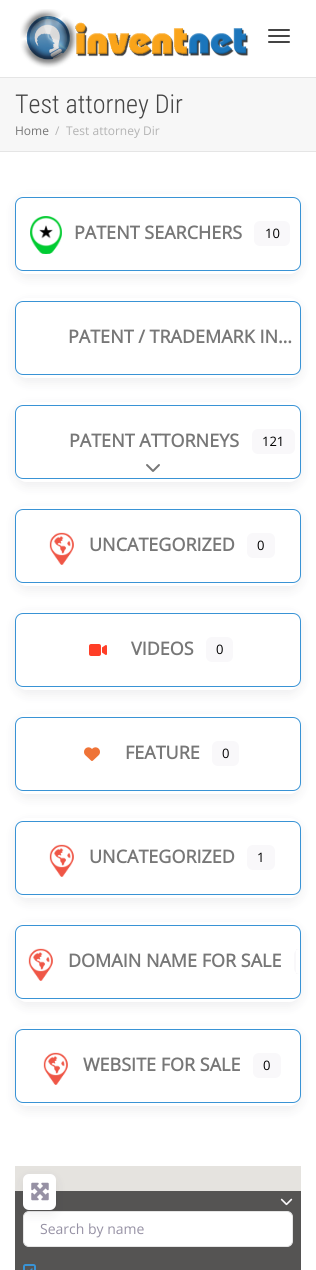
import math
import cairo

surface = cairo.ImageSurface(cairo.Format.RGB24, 316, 1270)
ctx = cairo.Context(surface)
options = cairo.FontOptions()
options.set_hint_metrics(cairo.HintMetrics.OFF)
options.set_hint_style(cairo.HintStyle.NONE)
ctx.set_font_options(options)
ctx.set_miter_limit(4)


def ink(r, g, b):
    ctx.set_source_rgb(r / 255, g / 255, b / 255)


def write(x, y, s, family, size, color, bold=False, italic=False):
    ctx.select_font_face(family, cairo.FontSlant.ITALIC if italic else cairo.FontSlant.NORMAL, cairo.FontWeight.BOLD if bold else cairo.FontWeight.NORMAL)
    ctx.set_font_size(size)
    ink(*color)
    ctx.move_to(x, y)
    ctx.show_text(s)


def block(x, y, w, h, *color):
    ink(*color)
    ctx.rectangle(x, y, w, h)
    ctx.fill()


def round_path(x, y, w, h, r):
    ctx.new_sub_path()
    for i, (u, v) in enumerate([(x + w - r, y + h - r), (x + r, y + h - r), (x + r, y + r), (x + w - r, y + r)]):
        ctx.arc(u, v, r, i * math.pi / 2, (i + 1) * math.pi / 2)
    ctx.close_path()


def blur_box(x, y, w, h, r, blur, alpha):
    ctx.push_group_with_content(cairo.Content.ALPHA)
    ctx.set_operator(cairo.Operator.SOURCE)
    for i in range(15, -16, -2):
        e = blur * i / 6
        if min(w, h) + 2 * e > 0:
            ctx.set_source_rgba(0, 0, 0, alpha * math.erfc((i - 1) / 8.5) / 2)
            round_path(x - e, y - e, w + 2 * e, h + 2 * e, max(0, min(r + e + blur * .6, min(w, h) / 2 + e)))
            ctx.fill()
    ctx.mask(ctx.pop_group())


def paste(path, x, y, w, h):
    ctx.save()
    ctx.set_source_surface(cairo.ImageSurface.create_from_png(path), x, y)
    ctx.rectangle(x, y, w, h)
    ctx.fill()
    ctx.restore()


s1 = dict(family="Roboto Condensed Light", size=26, color=(68, 68, 68))
s2 = dict(family="Open Sans", size=12, color=(119, 119, 119))
s3 = dict(family="Open Sans", size=12, color=(179, 179, 179))
s4 = dict(family="Open Sans", size=18, color=(119, 119, 119), bold=True)
s5 = dict(family="Open Sans", size=13, color=(0, 0, 0))
s6 = dict(family="Open Sans", size=14, color=(150, 145, 164))

ink(255, 255, 255)
ctx.paint()
block(0, 77, 316, 1, 229, 229, 229)
paste("pic1.png", 20, 9, 229, 59)
ink(68, 68, 68)
round_path(268, 29, 22, 2, 1)
ctx.fill()
round_path(268, 35, 22, 2, 1)
ctx.fill()
round_path(268, 41, 22, 2, 1)
ctx.fill()
block(0, 78, 316, 73, 247, 247, 247)
block(0, 151, 316, 1, 229, 229, 229)
write(15, 113, "Test attorney Dir", **s1)
write(15, 135, "Home", **s2)
write(55, 135, "/", **s3)
write(66, 135, "Test attorney Dir", **s3)
ctx.save()
ctx.set_fill_rule(cairo.FillRule.EVEN_ODD)
ctx.new_path()
ctx.move_to(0, 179)
ctx.line_to(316, 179)
ctx.line_to(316, 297)
ctx.line_to(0, 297)
ctx.close_path()
ctx.move_to(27, 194)
ctx.line_to(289, 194)
ctx.curve_to(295.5, 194, 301, 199.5, 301, 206)
ctx.line_to(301, 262)
ctx.curve_to(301, 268.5, 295.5, 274, 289, 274)
ctx.line_to(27, 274)
ctx.curve_to(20.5, 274, 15, 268.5, 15, 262)
ctx.line_to(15, 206)
ctx.curve_to(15, 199.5, 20.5, 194, 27, 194)
ctx.close_path()
ctx.clip()
ink(31, 27, 45)
blur_box(15, 198, 286, 80, 12, 6, 0.08)
ctx.restore()
round_path(15.5, 197.5, 285, 73, 7.5)
ink(57, 147, 213)
ctx.set_line_width(1)
ctx.stroke()
paste("pic2.png", 30, 216, 32, 38)
write(74, 239, "PATENT SEARCHERS", **s4)
ink(249, 248, 250)
round_path(254, 221, 36, 25, 6)
ctx.fill()
write(265, 238, "10", **s5)
ctx.save()
ctx.set_fill_rule(cairo.FillRule.EVEN_ODD)
ctx.new_path()
ctx.move_to(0, 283)
ctx.line_to(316, 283)
ctx.line_to(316, 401)
ctx.line_to(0, 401)
ctx.close_path()
ctx.move_to(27, 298)
ctx.line_to(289, 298)
ctx.curve_to(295.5, 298, 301, 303.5, 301, 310)
ctx.line_to(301, 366)
ctx.curve_to(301, 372.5, 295.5, 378, 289, 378)
ctx.line_to(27, 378)
ctx.curve_to(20.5, 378, 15, 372.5, 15, 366)
ctx.line_to(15, 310)
ctx.curve_to(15, 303.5, 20.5, 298, 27, 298)
ctx.close_path()
ctx.clip()
ink(31, 27, 45)
blur_box(15, 302, 286, 80, 12, 6, 0.08)
ctx.restore()
round_path(15.5, 301.5, 285, 73, 7.5)
ink(57, 147, 213)
ctx.stroke()
write(68, 343, "PATENT / TRADEMARK IN…", **s4)
ctx.save()
ctx.set_fill_rule(cairo.FillRule.EVEN_ODD)
ctx.new_path()
ctx.move_to(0, 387)
ctx.line_to(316, 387)
ctx.line_to(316, 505)
ctx.line_to(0, 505)
ctx.close_path()
ctx.move_to(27, 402)
ctx.line_to(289, 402)
ctx.curve_to(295.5, 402, 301, 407.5, 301, 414)
ctx.line_to(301, 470)
ctx.curve_to(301, 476.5, 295.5, 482, 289, 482)
ctx.line_to(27, 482)
ctx.curve_to(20.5, 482, 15, 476.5, 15, 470)
ctx.line_to(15, 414)
ctx.curve_to(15, 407.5, 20.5, 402, 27, 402)
ctx.close_path()
ctx.clip()
ink(31, 27, 45)
blur_box(15, 406, 286, 80, 12, 6, 0.08)
ctx.restore()
round_path(15.5, 405.5, 285, 73, 7.5)
ink(57, 147, 213)
ctx.stroke()
write(69, 447, "PATENT ATTORNEYS", **s4)
ink(249, 248, 250)
round_path(252, 429, 43, 25, 6)
ctx.fill()
write(262, 446, "121", **s5)
paste("pic3.png", 146, 464, 14, 8)
ctx.save()
ctx.set_fill_rule(cairo.FillRule.EVEN_ODD)
ctx.new_path()
ctx.move_to(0, 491)
ctx.line_to(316, 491)
ctx.line_to(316, 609)
ctx.line_to(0, 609)
ctx.close_path()
ctx.move_to(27, 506)
ctx.line_to(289, 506)
ctx.curve_to(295.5, 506, 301, 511.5, 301, 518)
ctx.line_to(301, 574)
ctx.curve_to(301, 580.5, 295.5, 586, 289, 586)
ctx.line_to(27, 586)
ctx.curve_to(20.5, 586, 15, 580.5, 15, 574)
ctx.line_to(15, 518)
ctx.curve_to(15, 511.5, 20.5, 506, 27, 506)
ctx.close_path()
ctx.clip()
ink(31, 27, 45)
blur_box(15, 510, 286, 80, 12, 6, 0.08)
ctx.restore()
round_path(15.5, 509.5, 285, 73, 7.5)
ink(57, 147, 213)
ctx.stroke()
paste("pic4.png", 49, 532, 25, 33)
write(89, 551, "UNCATEGORIZED", **s4)
ink(249, 248, 250)
round_path(247, 533, 28, 25, 6)
ctx.fill()
write(257, 550, "0", **s5)
ctx.save()
ctx.set_fill_rule(cairo.FillRule.EVEN_ODD)
ctx.new_path()
ctx.move_to(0, 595)
ctx.line_to(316, 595)
ctx.line_to(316, 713)
ctx.line_to(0, 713)
ctx.close_path()
ctx.move_to(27, 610)
ctx.line_to(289, 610)
ctx.curve_to(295.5, 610, 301, 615.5, 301, 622)
ctx.line_to(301, 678)
ctx.curve_to(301, 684.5, 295.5, 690, 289, 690)
ctx.line_to(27, 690)
ctx.curve_to(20.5, 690, 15, 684.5, 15, 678)
ctx.line_to(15, 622)
ctx.curve_to(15, 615.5, 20.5, 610, 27, 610)
ctx.close_path()
ctx.clip()
ink(31, 27, 45)
blur_box(15, 614, 286, 80, 12, 6, 0.08)
ctx.restore()
round_path(15.5, 613.5, 285, 73, 7.5)
ink(57, 147, 213)
ctx.stroke()
paste("pic5.png", 89, 644, 18, 12)
write(131, 655, "VIDEOS", **s4)
ink(249, 248, 250)
round_path(206, 637, 27, 25, 6)
ctx.fill()
write(216, 654, "0", **s5)
ctx.save()
ctx.set_fill_rule(cairo.FillRule.EVEN_ODD)
ctx.new_path()
ctx.move_to(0, 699)
ctx.line_to(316, 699)
ctx.line_to(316, 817)
ctx.line_to(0, 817)
ctx.close_path()
ctx.move_to(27, 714)
ctx.line_to(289, 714)
ctx.curve_to(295.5, 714, 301, 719.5, 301, 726)
ctx.line_to(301, 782)
ctx.curve_to(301, 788.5, 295.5, 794, 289, 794)
ctx.line_to(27, 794)
ctx.curve_to(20.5, 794, 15, 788.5, 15, 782)
ctx.line_to(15, 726)
ctx.curve_to(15, 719.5, 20.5, 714, 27, 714)
ctx.close_path()
ctx.clip()
ink(31, 27, 45)
blur_box(15, 718, 286, 80, 12, 6, 0.08)
ctx.restore()
round_path(15.5, 717.5, 285, 73, 7.5)
ink(57, 147, 213)
ctx.stroke()
paste("pic6.png", 84, 747, 16, 14)
write(125, 759, "FEATURE", **s4)
ink(249, 248, 250)
round_path(212, 741, 27, 25, 6)
ctx.fill()
write(222, 758, "0", **s5)
ctx.save()
ctx.set_fill_rule(cairo.FillRule.EVEN_ODD)
ctx.new_path()
ctx.move_to(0, 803)
ctx.line_to(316, 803)
ctx.line_to(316, 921)
ctx.line_to(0, 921)
ctx.close_path()
ctx.move_to(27, 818)
ctx.line_to(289, 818)
ctx.curve_to(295.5, 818, 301, 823.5, 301, 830)
ctx.line_to(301, 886)
ctx.curve_to(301, 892.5, 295.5, 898, 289, 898)
ctx.line_to(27, 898)
ctx.curve_to(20.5, 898, 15, 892.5, 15, 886)
ctx.line_to(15, 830)
ctx.curve_to(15, 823.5, 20.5, 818, 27, 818)
ctx.close_path()
ctx.clip()
ink(31, 27, 45)
blur_box(15, 822, 286, 80, 12, 6, 0.08)
ctx.restore()
round_path(15.5, 821.5, 285, 73, 7.5)
ink(57, 147, 213)
ctx.stroke()
paste("pic4.png", 49, 844, 25, 33)
write(89, 863, "UNCATEGORIZED", **s4)
ink(249, 248, 250)
round_path(247, 845, 28, 25, 6)
ctx.fill()
write(257, 862, "1", **s5)
ctx.save()
ctx.set_fill_rule(cairo.FillRule.EVEN_ODD)
ctx.new_path()
ctx.move_to(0, 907)
ctx.line_to(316, 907)
ctx.line_to(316, 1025)
ctx.line_to(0, 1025)
ctx.close_path()
ctx.move_to(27, 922)
ctx.line_to(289, 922)
ctx.curve_to(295.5, 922, 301, 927.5, 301, 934)
ctx.line_to(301, 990)
ctx.curve_to(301, 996.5, 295.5, 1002, 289, 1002)
ctx.line_to(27, 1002)
ctx.curve_to(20.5, 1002, 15, 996.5, 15, 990)
ctx.line_to(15, 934)
ctx.curve_to(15, 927.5, 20.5, 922, 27, 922)
ctx.close_path()
ctx.clip()
ink(31, 27, 45)
blur_box(15, 926, 286, 80, 12, 6, 0.08)
ctx.restore()
round_path(15.5, 925.5, 285, 73, 7.5)
ink(57, 147, 213)
ctx.stroke()
paste("pic4.png", 28, 948, 25, 33)
write(68, 967, "DOMAIN NAME FOR SALE", **s4)
ink(249, 248, 250)
ctx.new_path()
ctx.move_to(300, 949)
ctx.line_to(296, 949)
ctx.line_to(296, 974)
ctx.line_to(300, 974)
ctx.curve_to(296.5, 974, 294, 971.5, 294, 968)
ctx.line_to(294, 955)
ctx.curve_to(294, 951.5, 296.5, 949, 300, 949)
ctx.close_path()
ctx.fill()
ctx.save()
ctx.set_fill_rule(cairo.FillRule.EVEN_ODD)
ctx.new_path()
ctx.move_to(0, 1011)
ctx.line_to(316, 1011)
ctx.line_to(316, 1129)
ctx.line_to(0, 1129)
ctx.close_path()
ctx.move_to(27, 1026)
ctx.line_to(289, 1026)
ctx.curve_to(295.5, 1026, 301, 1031.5, 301, 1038)
ctx.line_to(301, 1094)
ctx.curve_to(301, 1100.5, 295.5, 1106, 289, 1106)
ctx.line_to(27, 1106)
ctx.curve_to(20.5, 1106, 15, 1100.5, 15, 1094)
ctx.line_to(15, 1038)
ctx.curve_to(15, 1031.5, 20.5, 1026, 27, 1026)
ctx.close_path()
ctx.clip()
ink(31, 27, 45)
blur_box(15, 1030, 286, 80, 12, 6, 0.08)
ctx.restore()
round_path(15.5, 1029.5, 285, 73, 7.5)
ink(57, 147, 213)
ctx.stroke()
paste("pic4.png", 43, 1052, 25, 33)
write(83, 1071, "WEBSITE FOR SALE", **s4)
ink(249, 248, 250)
round_path(253, 1053, 28, 25, 6)
ctx.fill()
write(263, 1070, "0", **s5)
block(15, 1166, 286, 25, 229, 227, 223)
block(15, 1191, 286, 79, 85, 84, 83)
ink(255, 255, 255)
round_path(23.5, 1211.5, 269, 35, 5.5)
ctx.fill_preserve()
ink(229, 229, 229)
ctx.stroke()
ink(31, 27, 45)
blur_box(23, 1178, 33, 36, 6, 6, 0.08)
ink(255, 255, 255)
round_path(23, 1174, 33, 36, 6)
ctx.fill()
paste("pic7.png", 31, 1182, 18, 19)
paste("pic8.png", 280, 1198, 13, 8)
write(40, 1234, "Search by name", **s6)
ctx.new_path()
ctx.move_to(27.5, 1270.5)
ctx.line_to(29, 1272)
ctx.line_to(32, 1269)
ink(57, 147, 213)
ctx.set_line_width(1.4)
ctx.set_line_cap(cairo.LineCap.ROUND)
ctx.set_line_join(cairo.LineJoin.ROUND)
ctx.stroke()
round_path(24, 1265, 11, 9, 1.5)
ctx.set_line_width(2)
ctx.set_line_cap(cairo.LineCap.BUTT)
ctx.set_line_join(cairo.LineJoin.MITER)
ctx.stroke()
surface.write_to_png("screenshot.png")
